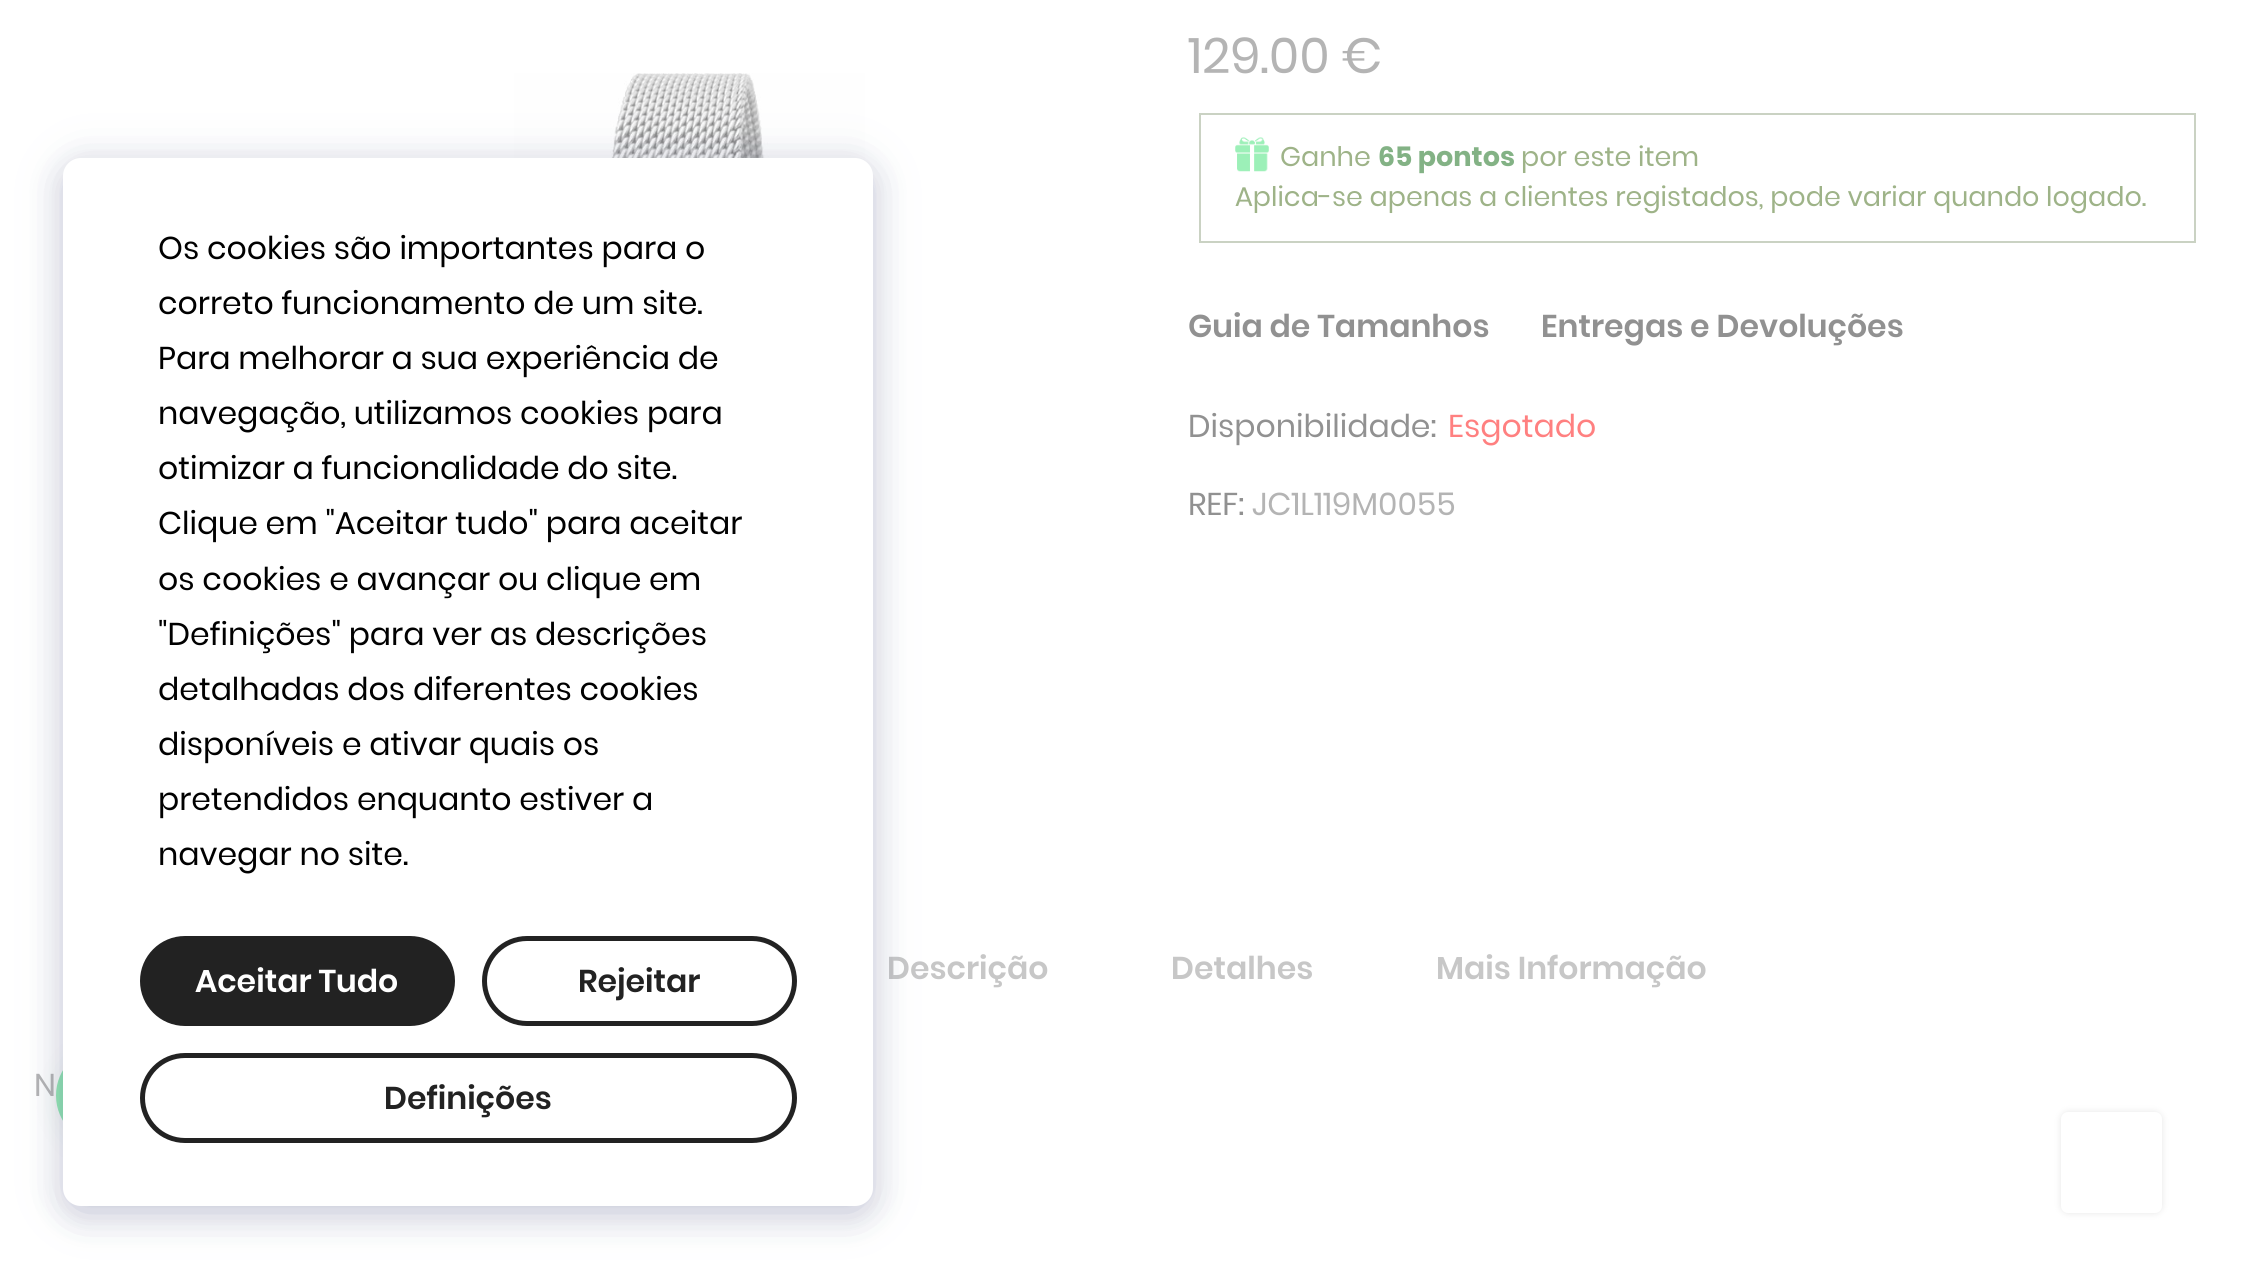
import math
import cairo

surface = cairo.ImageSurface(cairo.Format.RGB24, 2241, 1268)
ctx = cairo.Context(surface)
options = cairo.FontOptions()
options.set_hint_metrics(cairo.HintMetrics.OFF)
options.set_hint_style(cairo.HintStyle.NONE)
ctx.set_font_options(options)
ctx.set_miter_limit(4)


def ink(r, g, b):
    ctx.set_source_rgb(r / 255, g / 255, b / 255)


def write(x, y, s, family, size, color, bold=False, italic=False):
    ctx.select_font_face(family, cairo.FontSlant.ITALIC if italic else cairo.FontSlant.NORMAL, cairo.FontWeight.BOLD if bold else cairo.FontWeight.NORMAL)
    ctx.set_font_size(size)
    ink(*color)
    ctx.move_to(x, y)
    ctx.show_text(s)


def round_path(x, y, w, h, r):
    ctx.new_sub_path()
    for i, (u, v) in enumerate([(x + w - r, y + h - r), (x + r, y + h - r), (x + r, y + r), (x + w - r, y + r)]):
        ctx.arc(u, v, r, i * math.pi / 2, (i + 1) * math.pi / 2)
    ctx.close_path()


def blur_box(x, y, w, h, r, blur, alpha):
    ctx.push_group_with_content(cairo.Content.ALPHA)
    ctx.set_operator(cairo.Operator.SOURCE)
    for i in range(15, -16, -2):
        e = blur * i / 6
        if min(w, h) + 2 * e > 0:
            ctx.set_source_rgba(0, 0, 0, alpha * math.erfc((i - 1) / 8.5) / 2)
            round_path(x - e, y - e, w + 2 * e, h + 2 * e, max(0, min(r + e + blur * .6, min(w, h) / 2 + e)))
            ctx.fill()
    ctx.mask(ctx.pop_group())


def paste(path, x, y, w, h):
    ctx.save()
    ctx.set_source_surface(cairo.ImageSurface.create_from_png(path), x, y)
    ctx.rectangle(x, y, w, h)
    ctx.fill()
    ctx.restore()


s1 = dict(family="Poppins", size=49.5, color=(180, 180, 180))
s2 = dict(family="Poppins", size=27, color=(158, 179, 136))
s3 = dict(family="Poppins", size=27, color=(131, 178, 133), bold=True)
s4 = dict(family="Poppins SemiBold", size=31.5, color=(145, 145, 145))
s5 = dict(family="Poppins", size=31.5, color=(145, 145, 145))
s6 = dict(family="Poppins", size=31.5, color=(255, 128, 128))
s7 = dict(family="Poppins", size=31.5, color=(180, 180, 180))
s8 = dict(family="Poppins SemiBold", size=31.5, color=(199, 199, 199))
s9 = dict(family="Poppins", size=31.5, color=(0, 0, 0))
s10 = dict(family="Poppins SemiBold", size=31.5, color=(255, 255, 255))
s11 = dict(family="Poppins SemiBold", size=31.5, color=(34, 34, 34))

ink(255, 255, 255)
ctx.paint()
paste("pic1.png", 514, 73, 351, 88)
write(1188, 73, "129.00 €", **s1)
ctx.rectangle(1200, 114, 995, 128)
ink(202, 210, 195)
ctx.stroke()
paste("pic2.png", 1235, 137, 34, 35)
write(1280, 166, "Ganhe", **s2)
write(1378, 166, "65 pontos", **s3)
write(1521, 166, "por este item", **s2)
write(1235, 206, "Aplica-se apenas a clientes registados, pode variar quando logado.", **s2)
write(1188, 337, "Guia de Tamanhos", **s4)
write(1541, 337, "Entregas e Devoluções", **s4)
write(1188, 437, "Disponibilidade:", **s5)
write(1448, 437, "Esgotado", **s6)
write(1188, 515, "REF:", **s5)
write(1252, 515, "JC1L119M0055", **s7)
write(887, 979, "Descrição", **s8)
write(1171, 979, "Detalhes", **s8)
write(1436, 979, "Mais Informação", **s8)
ink(139, 190, 158)
blur_box(61, 1051, 99, 99, 49.5, 13.5, 0.2)
write(34, 1096, "N", **s7)
ink(146, 233, 179)
ctx.new_path()
ctx.arc(105.5, 1095.5, 49.5, 0, 2 * math.pi)
ctx.fill()
ink(93, 100, 148)
blur_box(63, 162, 810, 1049, 18, 22.5, 0.2)
ink(37, 44, 97)
blur_box(63, 169, 810, 1048, 18, 17, 0.15)
ink(255, 255, 255)
round_path(63, 158, 810, 1048, 18)
ctx.fill()
write(158, 259, "Os cookies são importantes para o", **s9)
write(158, 314, "correto funcionamento de um site.", **s9)
write(158, 369, "Para melhorar a sua experiência de", **s9)
write(158, 424, "navegação, utilizamos cookies para", **s9)
write(158, 479, "otimizar a funcionalidade do site.", **s9)
write(158, 534, "Clique em \"Aceitar tudo\" para aceitar", **s9)
write(158, 590, "os cookies e avançar ou clique em", **s9)
write(158, 645, "\"Definições\" para ver as descrições", **s9)
write(158, 700, "detalhadas dos diferentes cookies", **s9)
write(158, 755, "disponíveis e ativar quais os", **s9)
write(158, 810, "pretendidos enquanto estiver a", **s9)
write(158, 865, "navegar no site.", **s9)
ink(34, 34, 34)
round_path(142.5, 938.5, 310, 85, 42.5)
ctx.fill_preserve()
ctx.set_line_width(5)
ctx.stroke()
write(195, 992, "Aceitar Tudo", **s10)
round_path(484.5, 938.5, 310, 85, 42.5)
ink(34, 34, 34)
ctx.stroke()
write(578, 992, "Rejeitar", **s11)
round_path(142.5, 1055.5, 652, 85, 42.5)
ctx.stroke()
write(384, 1109, "Definições", **s11)
ink(128, 128, 128)
blur_box(2061, 1112, 101, 101, 7, 3.5, 0.2)
ink(255, 255, 255)
round_path(2061, 1112, 101, 101, 7)
ctx.fill()
surface.write_to_png("screenshot.png")
